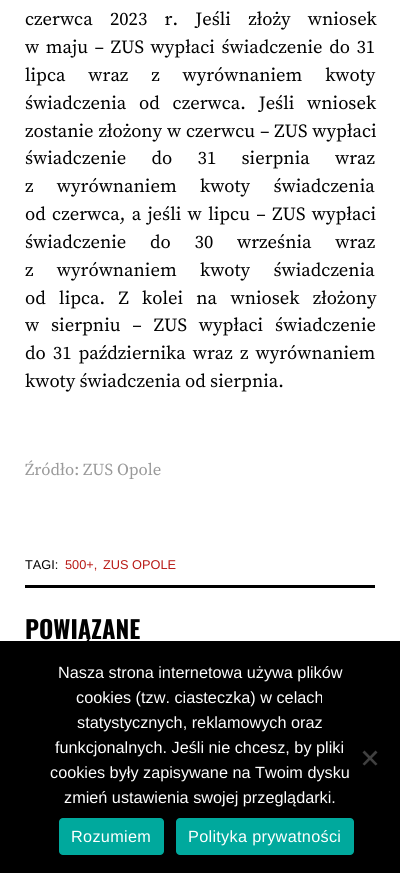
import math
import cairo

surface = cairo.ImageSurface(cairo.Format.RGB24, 400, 873)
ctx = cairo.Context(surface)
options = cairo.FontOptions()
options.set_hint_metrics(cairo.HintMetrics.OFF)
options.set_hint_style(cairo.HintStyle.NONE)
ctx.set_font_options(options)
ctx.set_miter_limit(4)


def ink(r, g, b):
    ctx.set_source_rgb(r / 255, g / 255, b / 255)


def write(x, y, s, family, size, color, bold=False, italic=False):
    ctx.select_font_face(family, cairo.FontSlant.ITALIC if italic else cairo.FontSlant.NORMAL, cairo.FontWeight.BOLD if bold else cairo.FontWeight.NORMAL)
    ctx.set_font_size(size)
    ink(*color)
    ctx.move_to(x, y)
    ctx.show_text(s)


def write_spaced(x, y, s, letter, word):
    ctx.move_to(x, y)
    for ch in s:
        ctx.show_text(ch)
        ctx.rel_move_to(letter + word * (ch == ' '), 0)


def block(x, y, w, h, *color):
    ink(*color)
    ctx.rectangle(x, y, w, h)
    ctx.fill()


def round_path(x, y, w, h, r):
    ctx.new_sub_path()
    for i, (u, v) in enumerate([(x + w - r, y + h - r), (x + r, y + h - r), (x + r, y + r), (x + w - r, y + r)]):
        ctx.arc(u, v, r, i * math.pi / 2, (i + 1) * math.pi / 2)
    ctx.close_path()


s1 = dict(family="Source Serif Pro", size=18.6, color=(0, 0, 0))
s2 = dict(family="Source Serif Pro", size=16.75, color=(153, 153, 153))
s3 = dict(family="Liberation Sans", size=12.75, color=(0, 0, 0))
s4 = dict(family="Liberation Sans", size=12.75, color=(184, 25, 21))
s5 = dict(family="Oswald", size=24.5, color=(0, 0, 0), bold=True)
s6 = dict(family="Liberation Sans", size=16.25, color=(255, 255, 255))

ink(255, 255, 255)
ctx.paint()
ctx.select_font_face("Source Serif Pro")
ctx.set_font_size(18.6)
ink(0, 0, 0)
write_spaced(25, 25, "czerwca 2023 r. Jeśli złoży wniosek", 0, 13)
write_spaced(25, 53, "w maju – ZUS wypłaci świadczenie do 31", 0, 2.25)
write_spaced(25, 81, "lipca wraz z wyrównaniem kwoty", 0, 18.5)
write_spaced(25, 109, "świadczenia od czerwca. Jeśli wniosek", 0, 8.5)
write_spaced(25, 137, "zostanie złożony w czerwcu – ZUS wypłaci", 0, 0.5)
write_spaced(25, 164, "świadczenie do 31 sierpnia wraz", 0, 21)
write_spaced(25, 192, "z wyrównaniem kwoty świadczenia", 0, 19)
write_spaced(25, 220, "od czerwca, a jeśli w lipcu – ZUS wypłaci", 0, 2)
write_spaced(25, 248, "świadczenie do 30 września wraz", 0, 19.5)
write_spaced(25, 276, "z wyrównaniem kwoty świadczenia", 0, 19)
write_spaced(25, 304, "od lipca. Z kolei na wniosek złożony", 0, 9)
write_spaced(25, 331, "w sierpniu – ZUS wypłaci świadczenie", 0, 7.5)
write_spaced(25, 359, "do 31 października wraz z wyrównaniem", 0, 2.75)
write(25, 387, "kwoty świadczenia od sierpnia.", **s1)
write(25, 475, "Źródło: ZUS Opole", **s2)
write(25, 569, "TAGI:", **s3)
write(65, 569, "500+,", **s4)
write(103, 569, "ZUS OPOLE", **s4)
block(25, 585, 350, 3, 0, 0, 0)
write(25, 639, "POWIĄZANE", **s5)
block(0, 641, 400, 232, 0, 0, 0)
write(58, 678, "Nasza strona internetowa używa plików", **s6)
write(76, 703, "cookies (tzw. ciasteczka) w celach", **s6)
write(77, 728, "statystycznych, reklamowych oraz", **s6)
write(55, 753, "funkcjonalnych. Jeśli nie chcesz, by pliki", **s6)
write(50, 778, "cookies były zapisywane na Twoim dysku", **s6)
write(64, 803, "zmień ustawienia swojej przeglądarki.", **s6)
ink(64, 64, 64)
ctx.new_path()
ctx.move_to(375.5, 750.5)
ctx.line_to(377.5, 752.5)
ctx.line_to(364.5, 765.5)
ctx.line_to(362.5, 764)
ctx.close_path()
ctx.fill()
ctx.new_path()
ctx.move_to(362.5, 752.5)
ctx.line_to(364.5, 750.5)
ctx.line_to(377.5, 764)
ctx.line_to(375.5, 765.5)
ctx.close_path()
ctx.fill()
ink(0, 169, 157)
round_path(59, 818, 105, 37, 4)
ctx.fill()
ink(255, 255, 255)
write_spaced(71, 842, "Rozumiem", 0.3, 0)
ink(0, 169, 157)
round_path(176, 818, 178, 37, 4)
ctx.fill()
ink(255, 255, 255)
write_spaced(188, 842, "Polityka prywatności", 0.3, 0)
surface.write_to_png("screenshot.png")
